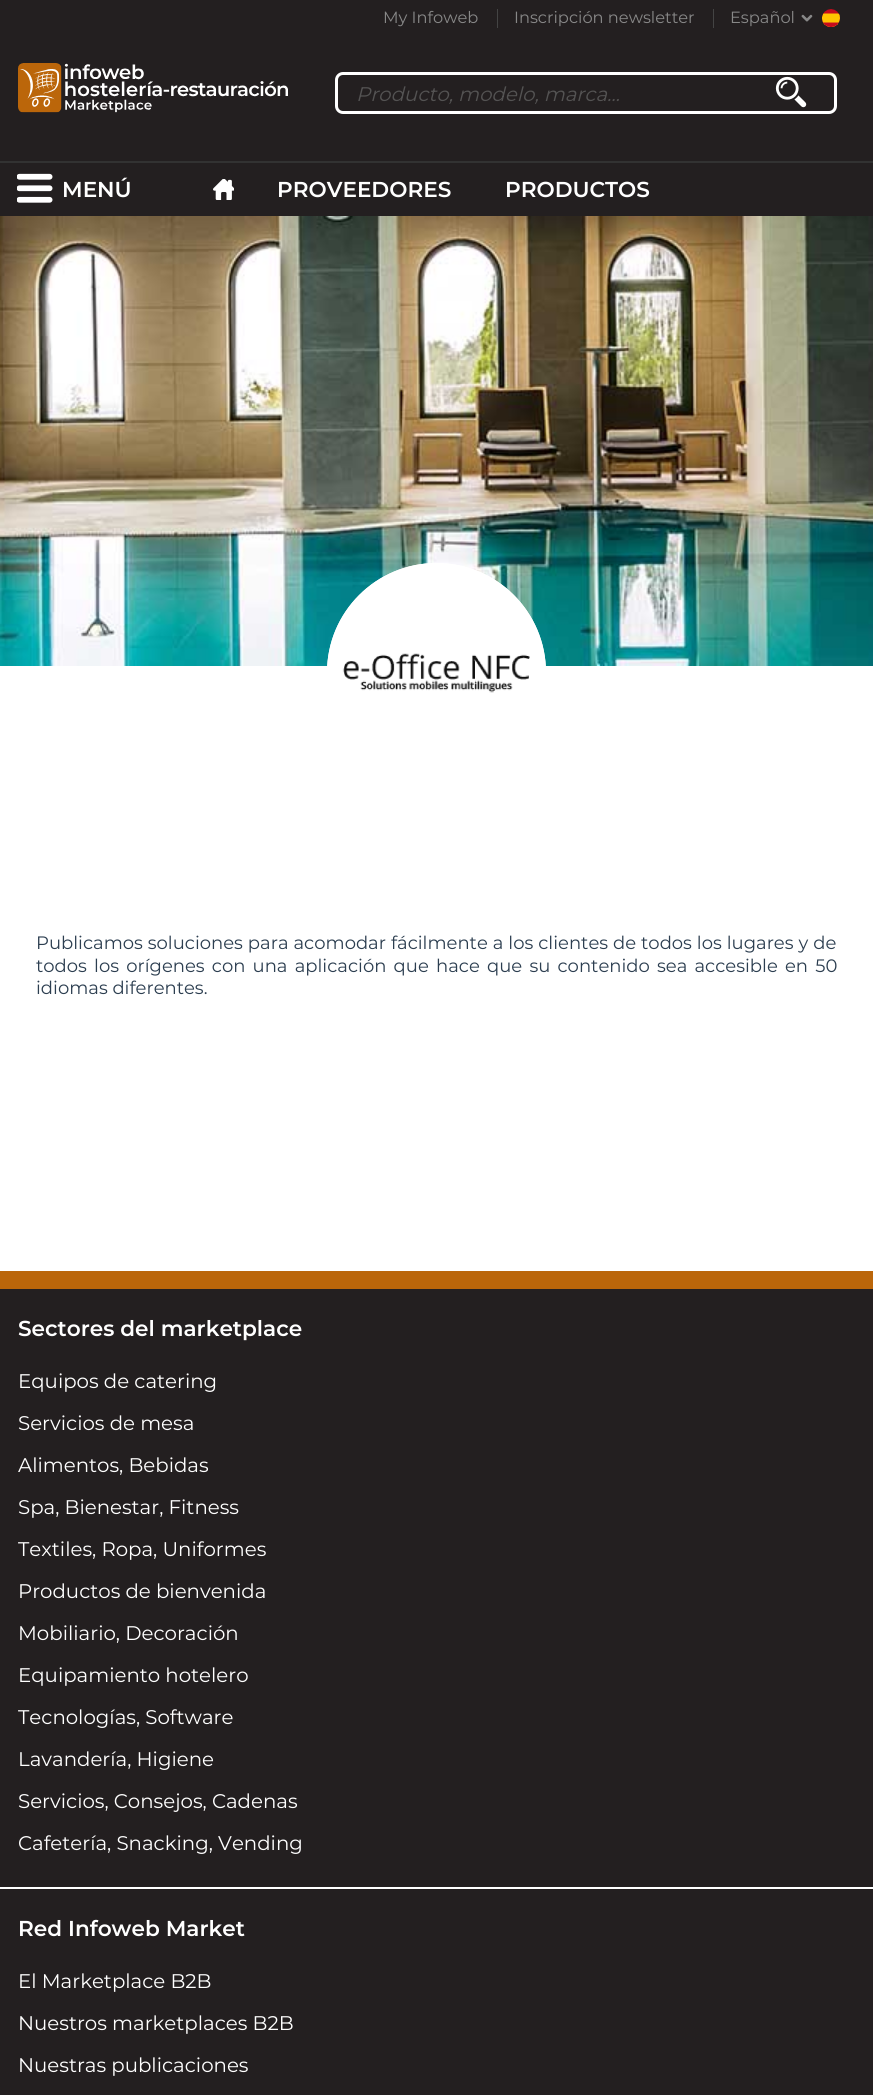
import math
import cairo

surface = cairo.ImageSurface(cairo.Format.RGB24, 873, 2095)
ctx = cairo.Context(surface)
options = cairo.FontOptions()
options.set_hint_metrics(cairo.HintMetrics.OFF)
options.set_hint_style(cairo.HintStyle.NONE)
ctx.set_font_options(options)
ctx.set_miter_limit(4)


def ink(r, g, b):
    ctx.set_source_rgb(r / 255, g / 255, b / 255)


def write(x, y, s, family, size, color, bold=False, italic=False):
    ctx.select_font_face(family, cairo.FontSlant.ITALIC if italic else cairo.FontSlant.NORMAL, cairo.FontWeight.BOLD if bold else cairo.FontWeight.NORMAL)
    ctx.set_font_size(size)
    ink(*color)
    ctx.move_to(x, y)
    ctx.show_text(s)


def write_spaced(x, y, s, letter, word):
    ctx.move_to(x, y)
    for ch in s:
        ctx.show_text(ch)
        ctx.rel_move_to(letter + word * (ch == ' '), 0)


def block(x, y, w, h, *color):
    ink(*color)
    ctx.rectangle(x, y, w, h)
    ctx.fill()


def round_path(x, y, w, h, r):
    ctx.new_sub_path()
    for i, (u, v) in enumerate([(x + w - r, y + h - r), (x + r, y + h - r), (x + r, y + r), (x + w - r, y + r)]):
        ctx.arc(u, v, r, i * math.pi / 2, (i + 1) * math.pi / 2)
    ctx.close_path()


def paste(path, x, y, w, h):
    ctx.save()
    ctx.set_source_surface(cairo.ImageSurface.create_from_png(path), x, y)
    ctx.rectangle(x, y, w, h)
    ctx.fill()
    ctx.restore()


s1 = dict(family="Montserrat", size=16.25, color=(136, 136, 136))
s2 = dict(family="Montserrat", size=19.75, color=(84, 83, 83), italic=True)
s3 = dict(family="Montserrat SemiBold", size=21.6, color=(255, 255, 255))
s4 = dict(family="Montserrat", size=18, color=(44, 62, 80))
s5 = dict(family="Montserrat", size=19.75, color=(255, 255, 255))

ink(255, 255, 255)
ctx.paint()
block(0, 0, 873, 161, 35, 31, 32)
block(0, 161, 873, 2, 50, 50, 50)
write(383, 23, "My Infoweb", **s1)
block(497, 9, 1, 19, 68, 68, 68)
write(514, 23, "Inscripción newsletter", **s1)
block(713, 9, 1, 19, 68, 68, 68)
paste("pic1.png", 822, 9, 18, 18)
write(730, 23, "Español", **s1)
paste("pic2.png", 801, 14, 12, 8)
paste("pic3.png", 18, 63, 270, 50)
round_path(336.5, 73.5, 499, 39, 6.5)
ink(255, 255, 255)
ctx.set_line_width(3)
ctx.stroke()
write(356, 101, "Producto, modelo, marca...", **s2)
paste("pic4.png", 775, 76, 32, 32)
block(0, 163, 873, 53, 35, 31, 32)
paste("pic5.png", 17, 173, 36, 30)
write(62, 197, "MENÚ", **s3)
paste("pic6.png", 213, 179, 21, 21)
write(277, 197, "PROVEEDORES", **s3)
write(505, 197, "PRODUCTOS", **s3)
paste("pic7.png", 0, 216, 873, 450)
ctx.arc(436.5, 672.5, 109.5, 0, 2 * math.pi)
ctx.fill()
paste("pic8.png", 342, 653, 188, 40)
ctx.arc(436.5, 672.5, 102, 0, 2 * math.pi)
ctx.set_line_width(15)
ctx.stroke()
ctx.select_font_face("Montserrat")
ctx.set_font_size(18)
ink(44, 62, 80)
write_spaced(36, 949, "Publicamos soluciones para acomodar fácilmente a los clientes de todos los lugares y de", 0, 0.25)
write_spaced(36, 972, "todos los orígenes con una aplicación que hace que su contenido sea accesible en 50", 0, 2.5)
write(36, 994, "idiomas diferentes.", **s4)
block(0, 1289, 873, 806, 35, 31, 32)
block(0, 1271, 873, 18, 187, 102, 10)
block(0, 1887, 873, 2, 255, 255, 255)
write(18, 1336, "Sectores del marketplace", **s3)
write(18, 1388, "Equipos de catering", **s5)
write(18, 1430, "Servicios de mesa", **s5)
write(18, 1472, "Alimentos, Bebidas", **s5)
write(18, 1514, "Spa, Bienestar, Fitness", **s5)
write(18, 1556, "Textiles, Ropa, Uniformes", **s5)
write(18, 1598, "Productos de bienvenida", **s5)
write(18, 1640, "Mobiliario, Decoración", **s5)
write(18, 1682, "Equipamiento hotelero", **s5)
write(18, 1724, "Tecnologías, Software", **s5)
write(18, 1766, "Lavandería, Higiene", **s5)
write(18, 1808, "Servicios, Consejos, Cadenas", **s5)
write(18, 1850, "Cafetería, Snacking, Vending", **s5)
write(18, 1936, "Red Infoweb Market", **s3)
write(18, 1988, "El Marketplace B2B", **s5)
write(18, 2030, "Nuestros marketplaces B2B", **s5)
write(18, 2072, "Nuestras publicaciones", **s5)
surface.write_to_png("screenshot.png")
